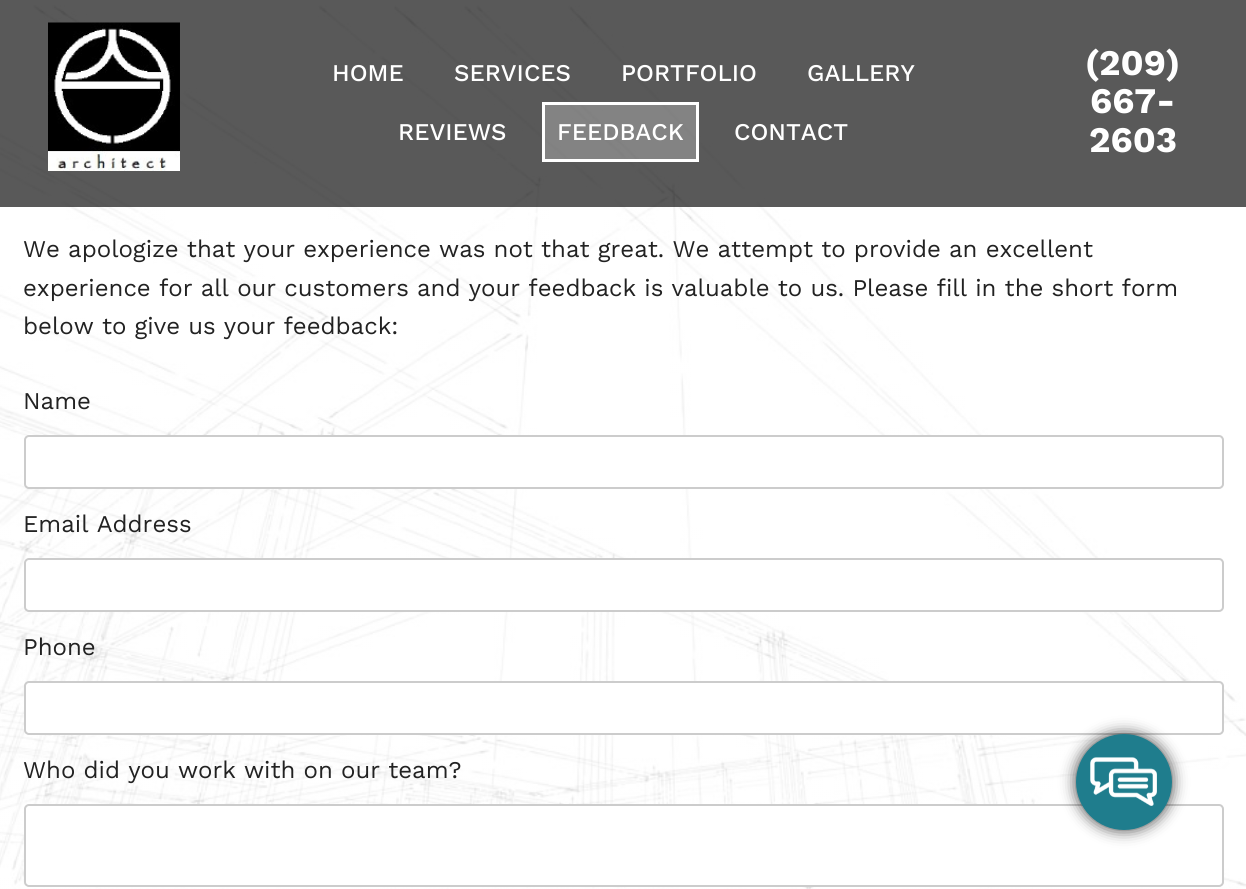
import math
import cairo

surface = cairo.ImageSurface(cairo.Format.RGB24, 1246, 889)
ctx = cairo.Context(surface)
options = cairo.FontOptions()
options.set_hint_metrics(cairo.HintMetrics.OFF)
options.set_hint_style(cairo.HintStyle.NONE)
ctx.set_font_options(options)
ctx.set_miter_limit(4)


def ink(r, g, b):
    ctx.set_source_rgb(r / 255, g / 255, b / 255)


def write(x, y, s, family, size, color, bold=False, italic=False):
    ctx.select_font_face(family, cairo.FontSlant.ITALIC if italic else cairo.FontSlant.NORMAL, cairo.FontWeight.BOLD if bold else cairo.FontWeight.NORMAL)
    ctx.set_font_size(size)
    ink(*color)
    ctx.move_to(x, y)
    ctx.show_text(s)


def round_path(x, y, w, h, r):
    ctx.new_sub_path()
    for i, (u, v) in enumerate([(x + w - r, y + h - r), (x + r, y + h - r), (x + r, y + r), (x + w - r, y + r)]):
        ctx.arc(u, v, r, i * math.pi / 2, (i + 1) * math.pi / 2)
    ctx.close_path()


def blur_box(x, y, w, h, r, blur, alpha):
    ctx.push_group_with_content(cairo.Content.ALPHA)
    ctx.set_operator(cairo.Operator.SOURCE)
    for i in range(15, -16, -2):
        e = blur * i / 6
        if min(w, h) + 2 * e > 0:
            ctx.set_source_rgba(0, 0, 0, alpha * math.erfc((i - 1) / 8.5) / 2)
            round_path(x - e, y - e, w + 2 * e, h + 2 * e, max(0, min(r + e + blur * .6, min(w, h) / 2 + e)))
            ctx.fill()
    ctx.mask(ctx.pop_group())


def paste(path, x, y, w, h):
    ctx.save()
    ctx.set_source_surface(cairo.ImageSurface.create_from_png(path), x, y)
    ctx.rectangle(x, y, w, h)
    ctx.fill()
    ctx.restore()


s1 = dict(family="Work Sans Medium", size=24, color=(255, 255, 255))
s2 = dict(family="Work Sans", size=36, color=(255, 255, 255), bold=True)
s3 = dict(family="Work Sans", size=24, color=(34, 34, 34))

ink(255, 255, 255)
ctx.paint()
paste("pic1.png", 0, 5, 1246, 884)
ctx.set_source_rgba(0, 0, 0, 0.65)
ctx.rectangle(0, 0, 1246, 207)
ctx.fill()
paste("pic2.png", 48, 22, 132, 149)
write(332, 81, "HOME", **s1)
write(454, 81, "SERVICES", **s1)
write(621, 81, "PORTFOLIO", **s1)
write(807, 81, "GALLERY", **s1)
write(398, 140, "REVIEWS", **s1)
write(557, 140, "FEEDBACK", **s1)
ctx.set_source_rgba(1, 1, 1, 0.25)
ctx.rectangle(543.5, 103.5, 154, 57)
ctx.fill_preserve()
ink(255, 255, 255)
ctx.set_line_width(3)
ctx.stroke()
write(734, 140, "CONTACT", **s1)
write(1085, 75, "(209)", **s2)
write(1090, 113, "667-", **s2)
write(1089, 152, "2603", **s2)
write(23, 257, "We apologize that your experience was not that great. We attempt to provide an excellent", **s3)
write(23, 296, "experience for all our customers and your feedback is valuable to us. Please fill in the short form", **s3)
write(23, 334, "below to give us your feedback:", **s3)
write(23, 409, "Name", **s3)
ink(255, 255, 255)
round_path(25, 436, 1198, 52, 4)
ctx.fill_preserve()
ink(204, 204, 204)
ctx.set_line_width(2)
ctx.stroke()
write(23, 532, "Email Address", **s3)
ink(255, 255, 255)
round_path(25, 559, 1198, 52, 4)
ctx.fill_preserve()
ink(204, 204, 204)
ctx.stroke()
write(23, 655, "Phone", **s3)
ink(255, 255, 255)
round_path(25, 682, 1198, 52, 4)
ctx.fill_preserve()
ink(204, 204, 204)
ctx.stroke()
write(23, 778, "Who did you work with on our team?", **s3)
ink(255, 255, 255)
round_path(25, 805, 1198, 81, 4)
ctx.fill_preserve()
ink(204, 204, 204)
ctx.stroke()
ink(0, 0, 0)
blur_box(1076, 734, 96, 96, 48, 7.5, 0.75)
ink(31, 125, 141)
ctx.arc(1124, 782, 48, 0, 2 * math.pi)
ctx.fill()
paste("pic3.png", 1090, 757, 67, 49)
surface.write_to_png("screenshot.png")
